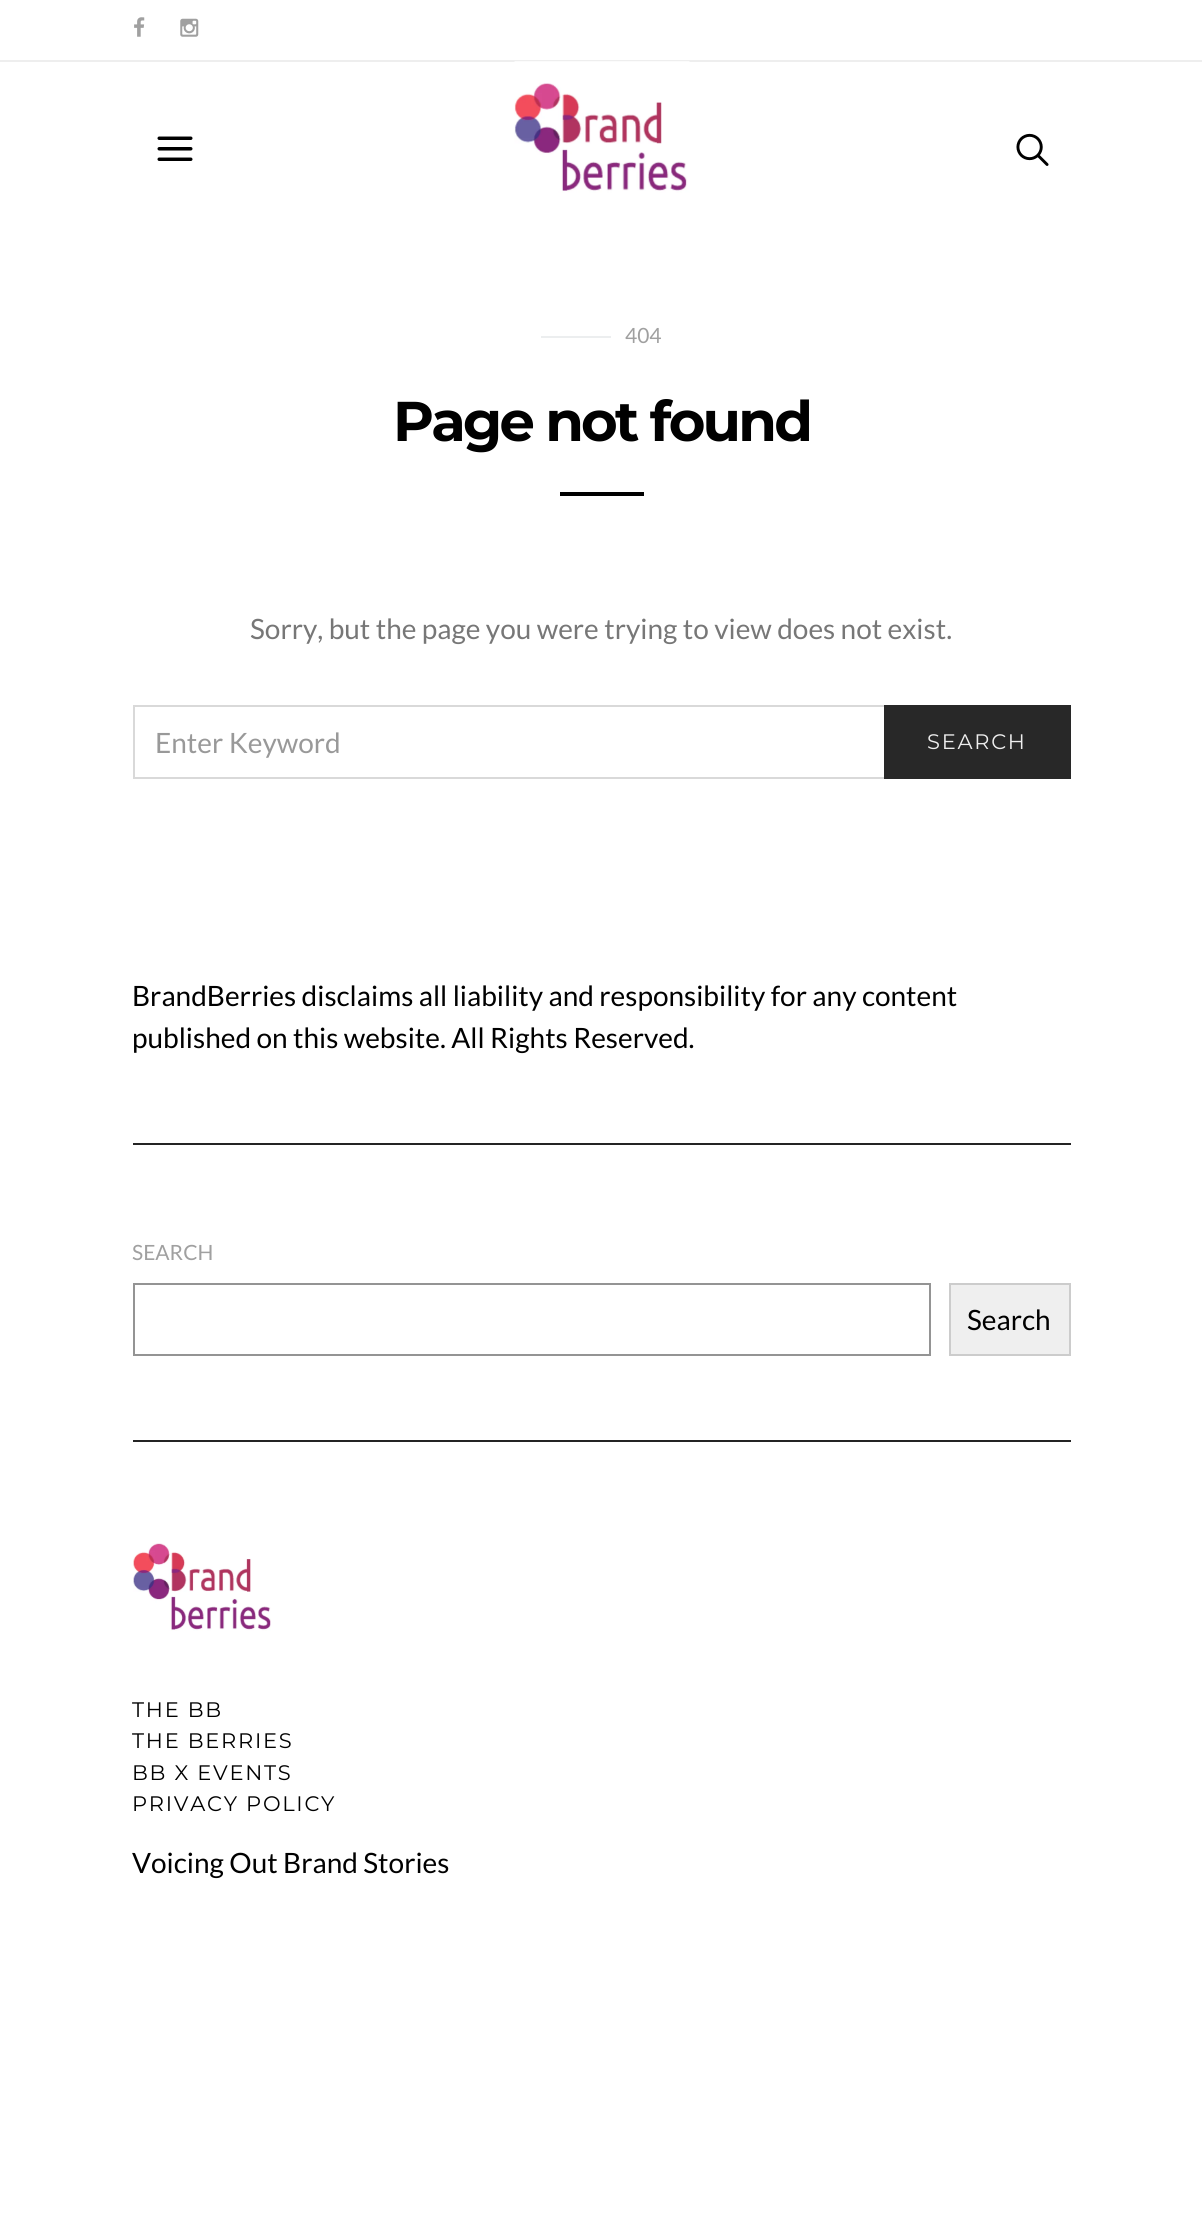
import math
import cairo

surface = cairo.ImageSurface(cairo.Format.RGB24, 1202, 2235)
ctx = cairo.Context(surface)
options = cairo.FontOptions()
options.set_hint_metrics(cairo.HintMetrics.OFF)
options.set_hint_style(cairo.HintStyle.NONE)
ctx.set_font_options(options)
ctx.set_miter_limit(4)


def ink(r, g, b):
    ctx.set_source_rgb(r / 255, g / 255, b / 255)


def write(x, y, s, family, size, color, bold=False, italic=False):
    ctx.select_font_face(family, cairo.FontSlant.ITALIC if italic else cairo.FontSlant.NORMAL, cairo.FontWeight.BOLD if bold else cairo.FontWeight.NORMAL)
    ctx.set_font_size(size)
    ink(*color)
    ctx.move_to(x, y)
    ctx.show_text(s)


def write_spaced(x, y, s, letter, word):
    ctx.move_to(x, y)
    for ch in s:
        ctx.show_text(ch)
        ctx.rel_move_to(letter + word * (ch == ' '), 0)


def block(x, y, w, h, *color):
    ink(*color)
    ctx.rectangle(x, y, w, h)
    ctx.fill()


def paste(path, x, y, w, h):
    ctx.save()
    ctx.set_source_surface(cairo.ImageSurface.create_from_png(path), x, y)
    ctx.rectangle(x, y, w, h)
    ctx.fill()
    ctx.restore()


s1 = dict(family="Lato", size=21, color=(160, 160, 160))
s2 = dict(family="Lato", size=28, color=(119, 119, 119))
s3 = dict(family="Lato", size=28, color=(153, 153, 153))
s4 = dict(family="Lato", size=28, color=(0, 0, 0))

ink(255, 255, 255)
ctx.paint()
block(0, 60, 1202, 2, 238, 238, 238)
paste("pic1.png", 134, 17, 11, 20)
paste("pic2.png", 180, 18, 19, 19)
paste("pic3.png", 157, 136, 36, 25)
paste("pic4.png", 514, 61, 176, 132)
paste("pic5.png", 1016, 133, 33, 33)
block(541, 336, 70, 2, 236, 238, 239)
write(625, 343, "404", **s1)
ctx.select_font_face("Montserrat", cairo.FontSlant.NORMAL, cairo.FontWeight.BOLD)
ctx.set_font_size(56)
ink(0, 0, 0)
write_spaced(393, 441, "Page not found", -2.75, 0)
block(560, 492, 84, 4, 0, 0, 0)
write(250, 639, "Sorry, but the page you were trying to view does not exist.", **s2)
ctx.rectangle(134, 706, 751, 72)
ink(217, 217, 217)
ctx.stroke()
write(155, 753, "Enter Keyword", **s3)
block(884, 705, 187, 74, 40, 40, 40)
ctx.select_font_face("Montserrat")
ctx.set_font_size(21)
ink(238, 238, 238)
write_spaced(927, 749, "SEARCH", 1.75, 0)
write(132, 1006, "BrandBerries disclaims all liability and responsibility for any content", **s4)
write(132, 1048, "published on this website. All Rights Reserved.", **s4)
block(133, 1143, 938, 2, 36, 36, 36)
write(132, 1260, "SEARCH", **s1)
ctx.rectangle(134, 1284, 796, 71)
ink(148, 148, 148)
ctx.stroke()
ink(239, 239, 239)
ctx.rectangle(950, 1284, 120, 71)
ctx.fill_preserve()
ink(204, 204, 204)
ctx.stroke()
write(967, 1330, "Search", **s4)
block(133, 1440, 938, 2, 36, 36, 36)
paste("pic6.png", 133, 1543, 138, 88)
ctx.select_font_face("Montserrat")
ctx.set_font_size(21)
ink(0, 0, 0)
write_spaced(132, 1717, "THE BB", 1.75, 0)
write_spaced(132, 1748, "THE BERRIES", 1.75, 0)
write_spaced(132, 1780, "BB X EVENTS", 1.75, 0)
write_spaced(132, 1811, "PRIVACY POLICY", 1.75, 0)
write(132, 1873, "Voicing Out Brand Stories", **s4)
surface.write_to_png("screenshot.png")
